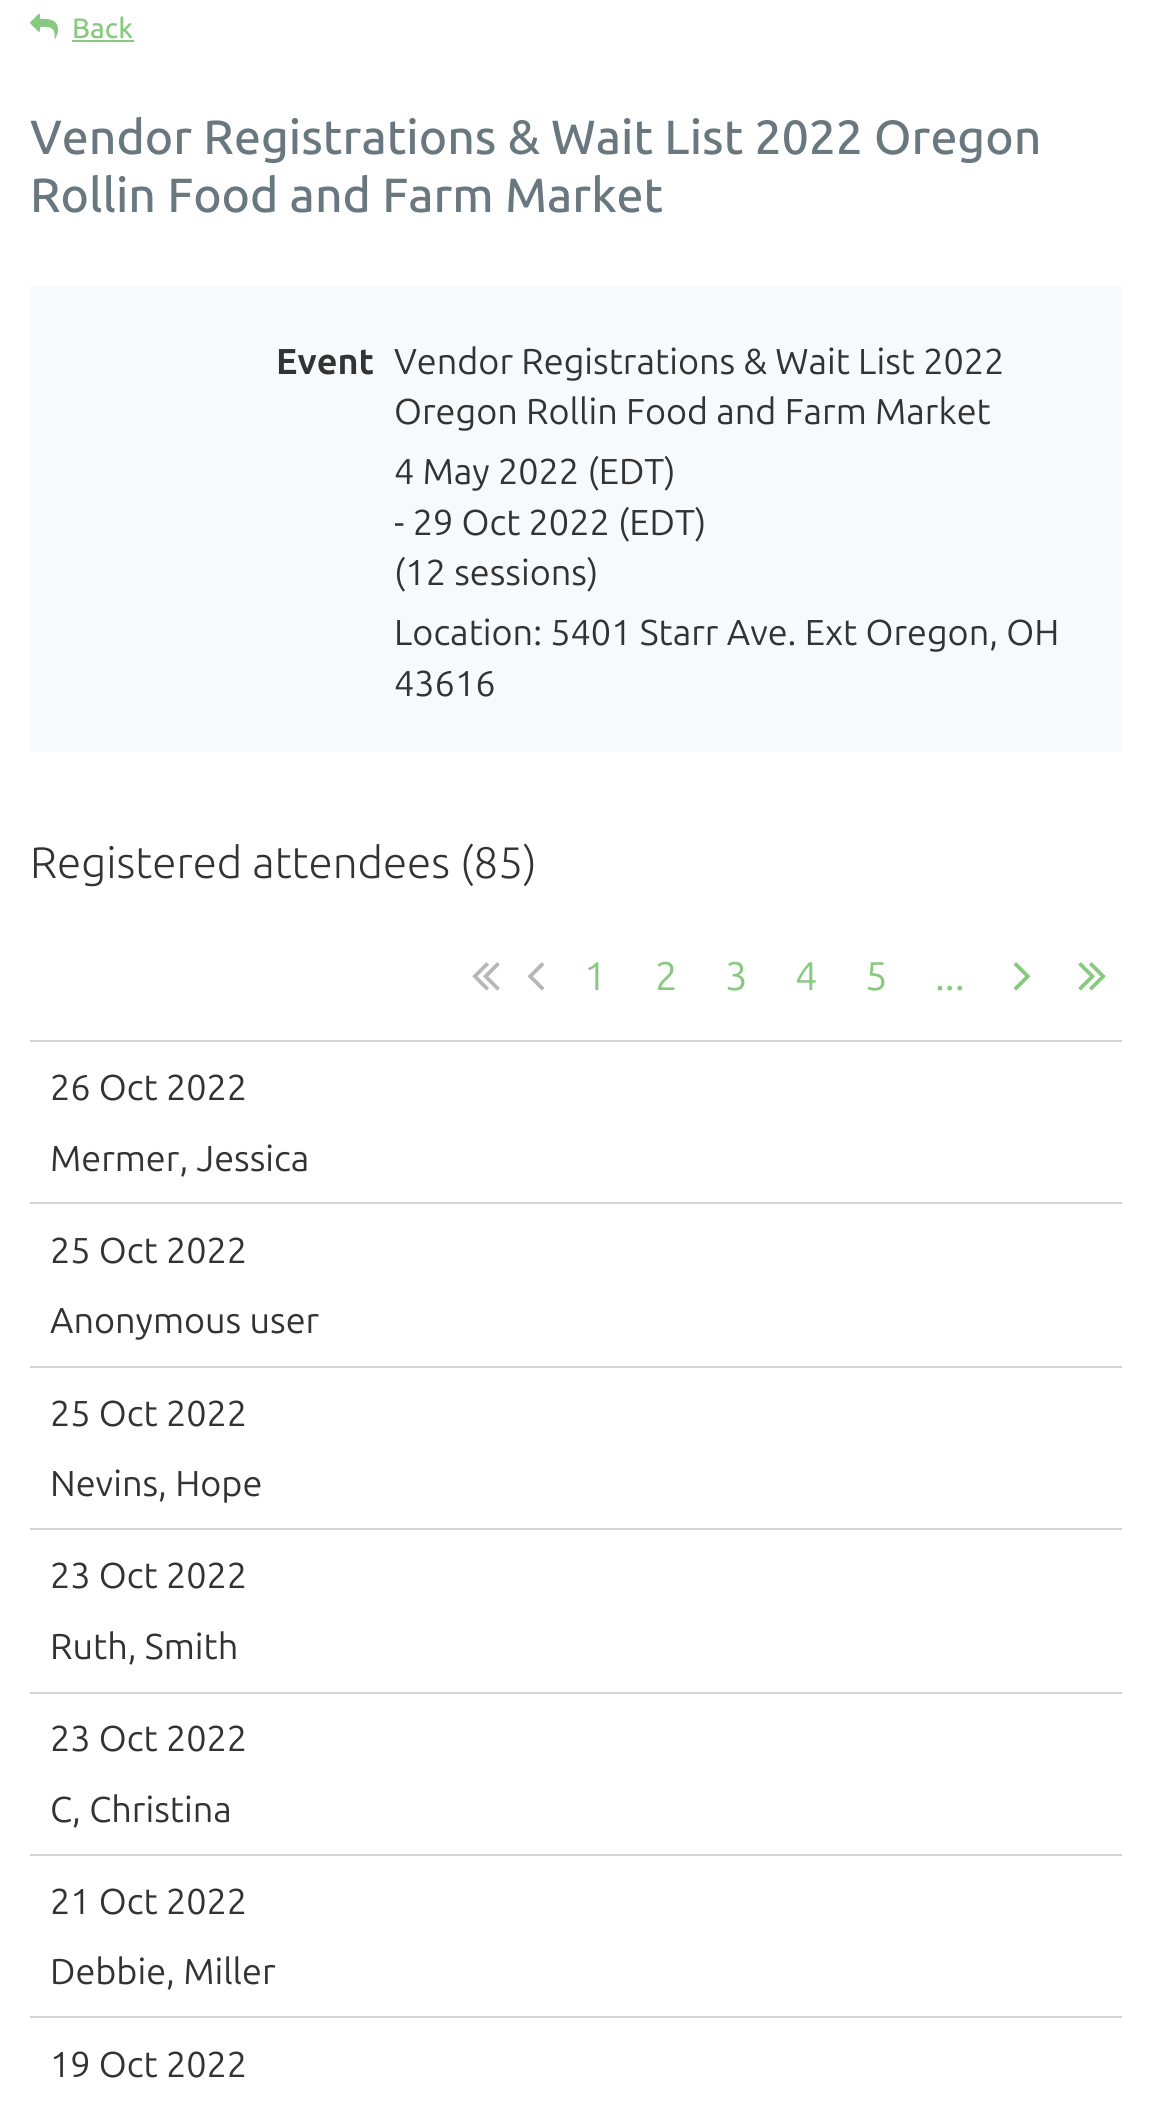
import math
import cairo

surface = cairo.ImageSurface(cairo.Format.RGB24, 1151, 2117)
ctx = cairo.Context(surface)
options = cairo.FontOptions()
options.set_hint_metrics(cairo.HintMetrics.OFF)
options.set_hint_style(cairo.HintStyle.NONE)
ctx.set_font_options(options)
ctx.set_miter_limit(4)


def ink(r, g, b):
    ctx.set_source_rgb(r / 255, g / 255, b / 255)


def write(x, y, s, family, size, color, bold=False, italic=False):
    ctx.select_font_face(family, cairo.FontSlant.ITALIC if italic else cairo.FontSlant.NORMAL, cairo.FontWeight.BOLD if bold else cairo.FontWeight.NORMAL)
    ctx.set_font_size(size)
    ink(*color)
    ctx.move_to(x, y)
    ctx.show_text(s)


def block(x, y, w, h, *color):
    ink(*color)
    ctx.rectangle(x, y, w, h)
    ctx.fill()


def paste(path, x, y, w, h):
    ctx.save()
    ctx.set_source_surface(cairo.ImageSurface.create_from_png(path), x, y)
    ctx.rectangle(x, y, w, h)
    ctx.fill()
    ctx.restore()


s1 = dict(family="Ubuntu Medium", size=28, color=(135, 201, 127))
s2 = dict(family="Ubuntu Medium", size=48, color=(105, 119, 127))
s3 = dict(family="Ubuntu", size=36, color=(51, 51, 51), bold=True)
s4 = dict(family="Ubuntu", size=36, color=(51, 51, 51))
s5 = dict(family="Ubuntu Light", size=44, color=(51, 51, 51))
s6 = dict(family="Ubuntu", size=40, color=(135, 201, 127))

ink(255, 255, 255)
ctx.paint()
paste("pic1.png", 30, 13, 28, 26)
write(72, 38, "Back", **s1)
block(72, 40, 62, 2, 135, 201, 127)
write(30, 154, "Vendor Registrations & Wait List 2022 Oregon", **s2)
write(30, 212, "Rollin Food and Farm Market", **s2)
block(30, 286, 1092, 466, 246, 250, 253)
write(276, 374, "Event", **s3)
write(394, 374, "Vendor Registrations & Wait List 2022", **s4)
write(394, 424, "Oregon Rollin Food and Farm Market", **s4)
write(394, 484, "4 May 2022 (EDT)", **s4)
write(394, 535, "- 29 Oct 2022 (EDT)", **s4)
write(394, 585, "(12 sessions)", **s4)
write(394, 645, "Location: 5401 Starr Ave. Ext Oregon, OH", **s4)
write(394, 696, "43616", **s4)
write(30, 878, "Registered attendees (85)", **s5)
paste("pic2.png", 472, 962, 28, 29)
paste("pic3.png", 527, 962, 18, 29)
write(584, 990, "1", **s6)
write(655, 990, "2", **s6)
write(725, 990, "3", **s6)
write(795, 990, "4", **s6)
write(865, 990, "5", **s6)
write(935, 990, "...", **s6)
paste("pic4.png", 1013, 962, 18, 29)
paste("pic5.png", 1078, 962, 28, 29)
block(30, 1040, 1092, 2, 214, 214, 214)
write(50, 1100, "26 Oct 2022", **s4)
write(50, 1171, "Mermer, Jessica", **s4)
block(30, 1202, 1092, 2, 214, 214, 214)
write(50, 1263, "25 Oct 2022", **s4)
write(50, 1333, "Anonymous user", **s4)
block(30, 1366, 1092, 2, 214, 214, 214)
write(50, 1426, "25 Oct 2022", **s4)
write(50, 1496, "Nevins, Hope", **s4)
block(30, 1528, 1092, 2, 214, 214, 214)
write(50, 1588, "23 Oct 2022", **s4)
write(50, 1659, "Ruth, Smith", **s4)
block(30, 1692, 1092, 2, 214, 214, 214)
write(50, 1751, "23 Oct 2022", **s4)
write(50, 1822, "C, Christina", **s4)
block(30, 1854, 1092, 2, 214, 214, 214)
write(50, 1914, "21 Oct 2022", **s4)
write(50, 1984, "Debbie, Miller", **s4)
block(30, 2016, 1092, 2, 214, 214, 214)
write(50, 2077, "19 Oct 2022", **s4)
surface.write_to_png("screenshot.png")
